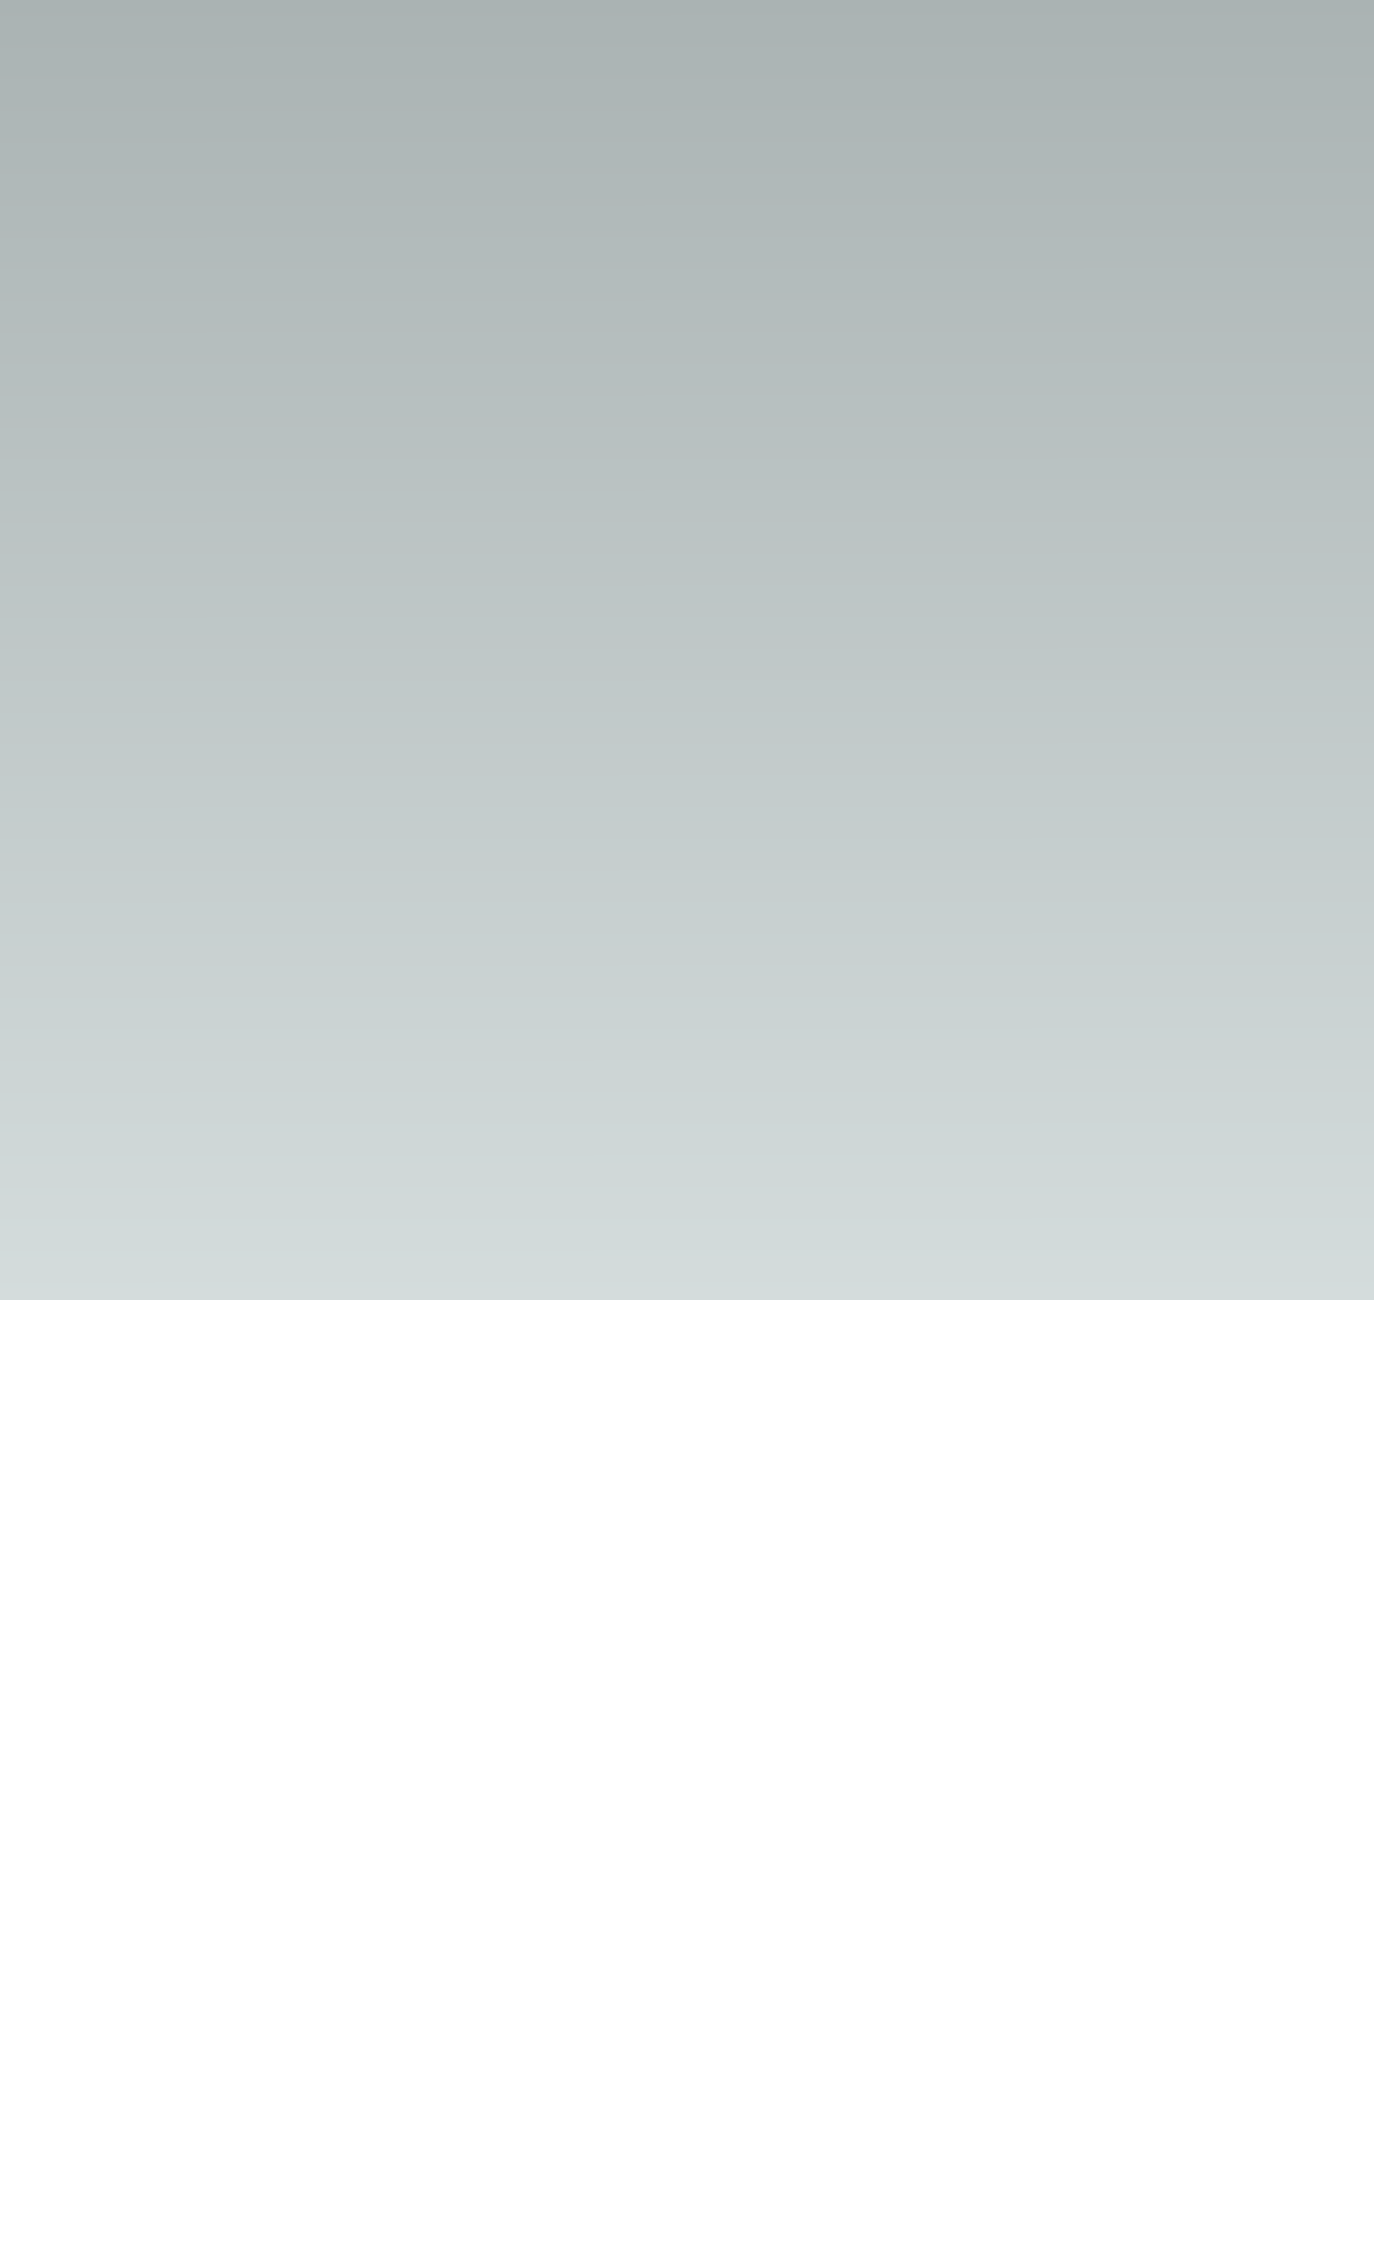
import math
import cairo

surface = cairo.ImageSurface(cairo.Format.RGB24, 1374, 2250)
ctx = cairo.Context(surface)
options = cairo.FontOptions()
options.set_hint_metrics(cairo.HintMetrics.OFF)
options.set_hint_style(cairo.HintStyle.NONE)
ctx.set_font_options(options)
ctx.set_miter_limit(4)


def ink(r, g, b):
    ctx.set_source_rgb(r / 255, g / 255, b / 255)


ink(255, 255, 255)
ctx.paint()
gradient = cairo.LinearGradient(687, 0, 688, 1300)
gradient.add_color_stop_rgba(0, 0.667, 0.702, 0.702, 1)
gradient.add_color_stop_rgba(1, 0.831, 0.863, 0.863, 1)
ctx.set_source(gradient)
ctx.rectangle(0, 0, 1374, 1300)
ctx.fill()
surface.write_to_png("screenshot.png")
